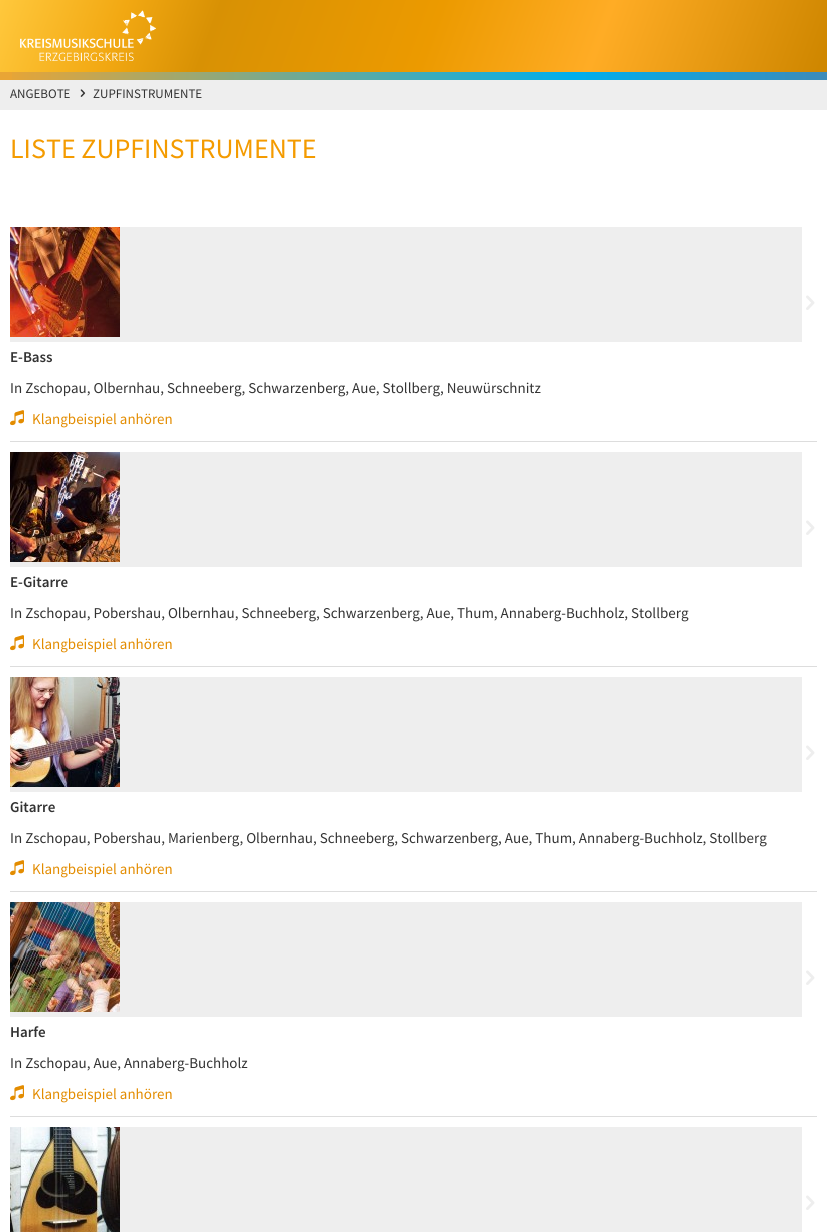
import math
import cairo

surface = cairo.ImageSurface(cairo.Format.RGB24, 827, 1232)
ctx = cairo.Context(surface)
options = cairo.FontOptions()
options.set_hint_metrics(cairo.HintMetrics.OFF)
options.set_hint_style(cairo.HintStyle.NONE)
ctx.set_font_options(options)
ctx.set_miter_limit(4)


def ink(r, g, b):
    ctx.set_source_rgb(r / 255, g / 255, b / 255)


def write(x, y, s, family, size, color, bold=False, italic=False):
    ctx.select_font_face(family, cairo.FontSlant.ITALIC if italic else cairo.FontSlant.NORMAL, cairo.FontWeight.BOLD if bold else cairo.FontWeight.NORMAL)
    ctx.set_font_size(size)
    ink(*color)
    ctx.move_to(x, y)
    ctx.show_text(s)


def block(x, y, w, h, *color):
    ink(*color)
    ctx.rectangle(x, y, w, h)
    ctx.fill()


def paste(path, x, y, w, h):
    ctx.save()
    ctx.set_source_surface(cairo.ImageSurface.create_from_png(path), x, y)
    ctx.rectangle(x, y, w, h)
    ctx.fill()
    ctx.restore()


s1 = dict(family="Source Sans Pro", size=13, color=(51, 51, 51))
s2 = dict(family="Source Sans Pro", size=28, color=(244, 155, 0))
s3 = dict(family="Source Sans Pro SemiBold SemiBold", size=15, color=(51, 51, 51))
s4 = dict(family="Source Sans Pro", size=15, color=(51, 51, 51))
s5 = dict(family="Source Sans Pro", size=15, color=(227, 140, 0))

ink(255, 255, 255)
ctx.paint()
gradient = cairo.LinearGradient(37, -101, 790, 173)
gradient.add_color_stop_rgba(0, 1, 0.784, 0.235, 1)
gradient.add_color_stop_rgba(0.15, 0.949, 0.659, 0.071, 1)
gradient.add_color_stop_rgba(0.26, 0.847, 0.569, 0.016, 1)
gradient.add_color_stop_rgba(0.52, 0.925, 0.604, 0, 1)
gradient.add_color_stop_rgba(0.72, 1, 0.675, 0.145, 1)
gradient.add_color_stop_rgba(0.99, 0.812, 0.529, 0, 1)
gradient.add_color_stop_rgba(1, 0.812, 0.529, 0, 1)
ctx.set_source(gradient)
ctx.rectangle(0, 0, 827, 72)
ctx.fill()
paste("pic1.png", 20, 10, 136, 51)
block(0, 72, 12, 8, 233, 165, 53)
paste("pic2.png", 12, 72, 815, 8)
block(0, 80, 827, 30, 238, 238, 238)
write(10, 98, "ANGEBOTE", **s1)
paste("pic3.png", 80, 89, 6, 8)
write(93, 98, "ZUPFINSTRUMENTE", **s1)
write(10, 158, "LISTE ZUPFINSTRUMENTE", **s2)
block(10, 441, 807, 1, 221, 221, 221)
block(10, 227, 792, 115, 238, 238, 238)
paste("pic4.png", 10, 227, 110, 110)
paste("pic5.png", 806, 295, 9, 15)
write(10, 362, "E-Bass", **s3)
write(10, 393, "In Zschopau, Olbernhau, Schneeberg, Schwarzenberg, Aue, Stollberg, Neuwürschnitz", **s4)
paste("pic6.png", 10, 410, 14, 16)
write(32, 424, "Klangbeispiel anhören", **s5)
block(10, 666, 807, 1, 221, 221, 221)
block(10, 452, 792, 115, 238, 238, 238)
paste("pic7.png", 10, 452, 110, 110)
paste("pic5.png", 806, 520, 9, 15)
write(10, 587, "E-Gitarre", **s3)
write(10, 618, "In Zschopau, Pobershau, Olbernhau, Schneeberg, Schwarzenberg, Aue, Thum, Annaberg-Buchholz, Stollberg", **s4)
paste("pic6.png", 10, 635, 14, 16)
write(32, 649, "Klangbeispiel anhören", **s5)
block(10, 891, 807, 1, 221, 221, 221)
block(10, 677, 792, 115, 238, 238, 238)
paste("pic8.png", 10, 677, 110, 110)
paste("pic5.png", 806, 745, 9, 15)
write(10, 812, "Gitarre", **s3)
write(10, 843, "In Zschopau, Pobershau, Marienberg, Olbernhau, Schneeberg, Schwarzenberg, Aue, Thum, Annaberg-Buchholz, Stollberg", **s4)
paste("pic6.png", 10, 860, 14, 16)
write(32, 874, "Klangbeispiel anhören", **s5)
block(10, 1116, 807, 1, 221, 221, 221)
block(10, 902, 792, 115, 238, 238, 238)
paste("pic9.png", 10, 902, 110, 110)
paste("pic5.png", 806, 970, 9, 15)
write(10, 1037, "Harfe", **s3)
write(10, 1068, "In Zschopau, Aue, Annaberg-Buchholz", **s4)
paste("pic6.png", 10, 1085, 14, 16)
write(32, 1099, "Klangbeispiel anhören", **s5)
block(120, 1127, 682, 105, 238, 238, 238)
paste("pic10.png", 10, 1127, 110, 105)
paste("pic5.png", 806, 1195, 9, 15)
surface.write_to_png("screenshot.png")
